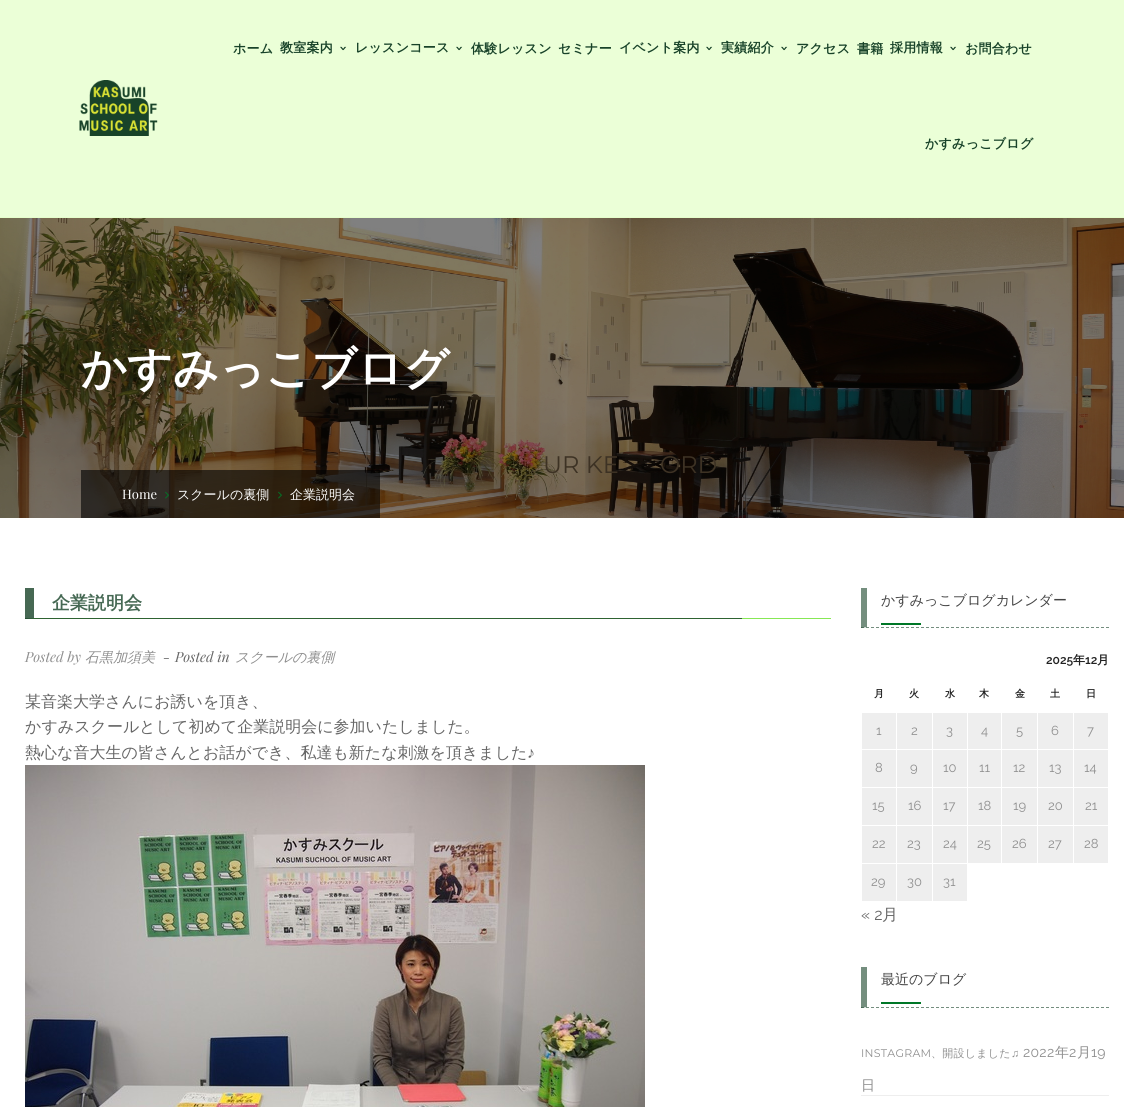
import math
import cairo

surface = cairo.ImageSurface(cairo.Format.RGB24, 1124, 1107)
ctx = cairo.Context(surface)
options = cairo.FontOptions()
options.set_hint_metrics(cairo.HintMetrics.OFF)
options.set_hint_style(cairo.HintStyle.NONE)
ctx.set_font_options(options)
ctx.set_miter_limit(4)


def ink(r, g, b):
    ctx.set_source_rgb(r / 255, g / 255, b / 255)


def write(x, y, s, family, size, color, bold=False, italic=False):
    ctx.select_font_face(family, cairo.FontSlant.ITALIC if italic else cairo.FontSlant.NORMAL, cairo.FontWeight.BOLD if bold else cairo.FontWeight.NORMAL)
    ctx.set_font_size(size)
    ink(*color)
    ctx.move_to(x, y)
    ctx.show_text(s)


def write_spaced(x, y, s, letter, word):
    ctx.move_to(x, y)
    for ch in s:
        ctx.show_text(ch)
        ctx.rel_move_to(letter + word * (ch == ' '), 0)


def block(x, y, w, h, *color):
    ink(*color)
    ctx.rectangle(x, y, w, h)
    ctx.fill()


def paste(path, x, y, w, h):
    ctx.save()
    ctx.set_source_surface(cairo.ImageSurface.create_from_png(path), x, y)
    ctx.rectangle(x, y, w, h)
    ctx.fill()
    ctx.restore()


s1 = dict(family="WenQuanYi Zen Hei", size=45, color=(255, 255, 255), bold=True)
s2 = dict(family="Playfair Display", size=13, color=(255, 255, 255))
s3 = dict(family="WenQuanYi Zen Hei Medium", size=13, color=(255, 255, 255))
s4 = dict(family="WenQuanYi Zen Hei", size=18, color=(70, 105, 84), bold=True)
s5 = dict(family="Playfair Display", size=14, color=(143, 143, 143), italic=True)
s6 = dict(family="WenQuanYi Zen Hei Medium", size=14, color=(143, 143, 143), italic=True)
s7 = dict(family="Playfair Display", size=14, color=(102, 102, 102), italic=True)
s8 = dict(family="WenQuanYi Zen Hei Medium", size=16, color=(102, 102, 102))
s9 = dict(family="Liberation Serif", size=16, color=(102, 102, 102))
s10 = dict(family="WenQuanYi Zen Hei Medium", size=14, color=(68, 68, 68))
s11 = dict(family="Raleway SemiBold", size=12, color=(34, 34, 34))
s12 = dict(family="WenQuanYi Zen Hei", size=12, color=(34, 34, 34), bold=True)
s13 = dict(family="WenQuanYi Zen Hei", size=10, color=(34, 34, 34), bold=True)
s14 = dict(family="Raleway", size=13, color=(143, 143, 143))
s15 = dict(family="Raleway", size=16, color=(102, 102, 102))
s16 = dict(family="Montserrat", size=24, color=(61, 50, 36))

ink(255, 255, 255)
ctx.paint()
block(0, 0, 1124, 217, 235, 255, 215)
block(0, 217, 1124, 1, 229, 255, 203)
paste("pic1.png", 79, 80, 79, 56)
ctx.select_font_face("WenQuanYi Zen Hei", cairo.FontSlant.NORMAL, cairo.FontWeight.BOLD)
ctx.set_font_size(13)
ink(24, 67, 41)
write_spaced(233, 53, "ホーム", 0.25, 0)
write_spaced(280, 52, "教室案内", 0.25, 0)
ctx.select_font_face("DejaVu Sans Mono", cairo.FontSlant.NORMAL, cairo.FontWeight.BOLD)
ctx.set_font_size(14)
ctx.save()
ctx.translate(339, 44)
ctx.rotate(90 * math.pi / 180)
write_spaced(0, 0, "›", 0.25, 0)
ctx.restore()
ctx.select_font_face("WenQuanYi Zen Hei", cairo.FontSlant.NORMAL, cairo.FontWeight.BOLD)
ctx.set_font_size(13)
write_spaced(355, 52, "レッスンコース", 0.25, 0)
ctx.select_font_face("DejaVu Sans Mono", cairo.FontSlant.NORMAL, cairo.FontWeight.BOLD)
ctx.set_font_size(14)
ctx.save()
ctx.translate(455, 44)
ctx.rotate(90 * math.pi / 180)
write_spaced(0, 0, "›", 0.25, 0)
ctx.restore()
ctx.select_font_face("WenQuanYi Zen Hei", cairo.FontSlant.NORMAL, cairo.FontWeight.BOLD)
ctx.set_font_size(13)
write_spaced(471, 53, "体験レッスン", 0.25, 0)
write_spaced(558, 53, "セミナー", 0.25, 0)
write_spaced(619, 52, "イベント案内", 0.25, 0)
ctx.select_font_face("DejaVu Sans Mono", cairo.FontSlant.NORMAL, cairo.FontWeight.BOLD)
ctx.set_font_size(14)
ctx.save()
ctx.translate(705, 44)
ctx.rotate(90 * math.pi / 180)
write_spaced(0, 0, "›", 0.25, 0)
ctx.restore()
ctx.select_font_face("WenQuanYi Zen Hei", cairo.FontSlant.NORMAL, cairo.FontWeight.BOLD)
ctx.set_font_size(13)
write_spaced(721, 52, "実績紹介", 0.25, 0)
ctx.select_font_face("DejaVu Sans Mono", cairo.FontSlant.NORMAL, cairo.FontWeight.BOLD)
ctx.set_font_size(14)
ctx.save()
ctx.translate(780, 44)
ctx.rotate(90 * math.pi / 180)
write_spaced(0, 0, "›", 0.25, 0)
ctx.restore()
ctx.select_font_face("WenQuanYi Zen Hei", cairo.FontSlant.NORMAL, cairo.FontWeight.BOLD)
ctx.set_font_size(13)
write_spaced(796, 53, "アクセス", 0.25, 0)
write_spaced(857, 53, "書籍", 0.25, 0)
write_spaced(890, 52, "採用情報", 0.25, 0)
ctx.select_font_face("DejaVu Sans Mono", cairo.FontSlant.NORMAL, cairo.FontWeight.BOLD)
ctx.set_font_size(14)
ctx.save()
ctx.translate(949, 44)
ctx.rotate(90 * math.pi / 180)
write_spaced(0, 0, "›", 0.25, 0)
ctx.restore()
ctx.select_font_face("WenQuanYi Zen Hei", cairo.FontSlant.NORMAL, cairo.FontWeight.BOLD)
ctx.set_font_size(13)
write_spaced(965, 53, "お問合わせ", 0.25, 0)
write_spaced(925, 148, "かすみっこブログ", 0.25, 0)
paste("pic2.png", 0, 218, 1124, 300)
write(81, 384, "かすみっこブログ", **s1)
ctx.set_source_rgba(0, 0, 0, 0.6)
ctx.rectangle(81, 470, 299, 48)
ctx.fill()
write(122, 499, "Home", **s2)
paste("pic3.png", 165, 491, 4, 8)
write(177, 499, "スクールの裏側", **s3)
paste("pic4.png", 278, 491, 4, 8)
write(290, 499, "企業説明会", **s3)
ink(135, 232, 85)
ctx.new_path()
ctx.move_to(831, 619)
ctx.line_to(25, 619)
ctx.line_to(34, 618)
ctx.line_to(831, 618)
ctx.close_path()
ctx.fill()
ctx.set_source_rgba(0.094, 0.263, 0.161, 0.8)
ctx.new_path()
ctx.move_to(25, 619)
ctx.line_to(25, 588)
ctx.line_to(34, 588)
ctx.line_to(34, 618)
ctx.close_path()
ctx.fill()
write(52, 609, "企業説明会", **s4)
ctx.set_source_rgba(0.094, 0.263, 0.161, 0.8)
ctx.rectangle(25, 618, 717, 1)
ctx.fill()
write(25, 662, "Posted by", **s5)
write(85, 662, "石黒加須美", **s6)
write(163, 662, "-", **s7)
write(175, 662, "Posted in", **s7)
write(235, 662, "スクールの裏側", **s6)
write(25, 707, "某音楽大学さんにお誘いを頂き、", **s8)
write(25, 732, "かすみスクールとして初めて企業説明会に参加いたしました。", **s8)
write(25, 758, "熱心な音大生の皆さんとお話ができ、私達も新たな刺激を頂きました", **s8)
write(527, 758, "♪", **s9)
paste("pic5.png", 25, 765, 620, 342)
ctx.new_path()
ctx.move_to(861, 627.5)
ctx.line_to(1109, 627.5)
ink(116, 142, 127)
ctx.set_line_width(1)
ctx.set_dash([3, 2])
ctx.stroke()
ctx.set_source_rgba(0.094, 0.263, 0.161, 0.6)
ctx.new_path()
ctx.move_to(861, 628)
ctx.line_to(861, 588)
ctx.line_to(867, 588)
ctx.line_to(867, 627)
ctx.close_path()
ctx.fill()
write(881, 605, "かすみっこブログカレンダー", **s10)
block(881, 623, 40, 2, 0, 119, 39)
write(1046, 664, "2025", **s11)
write(1073, 664, "年", **s12)
write(1085, 664, "12", **s11)
write(1097, 664, "月", **s12)
write(874, 697, "月", **s13)
write(909, 697, "火", **s13)
write(945, 697, "水", **s13)
write(979, 697, "木", **s13)
write(1015, 697, "金", **s13)
write(1050, 697, "土", **s13)
write(1086, 697, "日", **s13)
block(862, 713, 34, 36, 238, 238, 238)
write(876, 735, "1", **s14)
block(897, 713, 35, 36, 238, 238, 238)
write(911, 735, "2", **s14)
block(933, 713, 34, 36, 238, 238, 238)
write(946, 735, "3", **s14)
block(968, 713, 33, 36, 238, 238, 238)
write(981, 735, "4", **s14)
block(1002, 713, 35, 36, 238, 238, 238)
write(1016, 735, "5", **s14)
block(1038, 713, 35, 36, 238, 238, 238)
write(1051, 735, "6", **s14)
block(1074, 713, 34, 36, 238, 238, 238)
write(1087, 735, "7", **s14)
block(862, 750, 34, 37, 238, 238, 238)
write(875, 772, "8", **s14)
block(897, 750, 35, 37, 238, 238, 238)
write(910, 772, "9", **s14)
block(933, 750, 34, 37, 238, 238, 238)
write(943, 772, "10", **s14)
block(968, 750, 33, 37, 238, 238, 238)
write(979, 772, "11", **s14)
block(1002, 750, 35, 37, 238, 238, 238)
write(1013, 772, "12", **s14)
block(1038, 750, 35, 37, 238, 238, 238)
write(1049, 772, "13", **s14)
block(1074, 750, 34, 37, 238, 238, 238)
write(1084, 772, "14", **s14)
block(862, 788, 34, 37, 238, 238, 238)
write(872, 810, "15", **s14)
block(897, 788, 35, 37, 238, 238, 238)
write(908, 810, "16", **s14)
block(933, 788, 34, 37, 238, 238, 238)
write(943, 810, "17", **s14)
block(968, 788, 33, 37, 238, 238, 238)
write(978, 810, "18", **s14)
block(1002, 788, 35, 37, 238, 238, 238)
write(1013, 810, "19", **s14)
block(1038, 788, 35, 37, 238, 238, 238)
write(1048, 810, "20", **s14)
block(1074, 788, 34, 37, 238, 238, 238)
write(1085, 810, "21", **s14)
block(862, 826, 34, 37, 238, 238, 238)
write(872, 848, "22", **s14)
block(897, 826, 35, 37, 238, 238, 238)
write(907, 848, "23", **s14)
block(933, 826, 34, 37, 238, 238, 238)
write(943, 848, "24", **s14)
block(968, 826, 33, 37, 238, 238, 238)
write(977, 848, "25", **s14)
block(1002, 826, 35, 37, 238, 238, 238)
write(1012, 848, "26", **s14)
block(1038, 826, 35, 37, 238, 238, 238)
write(1048, 848, "27", **s14)
block(1074, 826, 34, 37, 238, 238, 238)
write(1084, 848, "28", **s14)
block(862, 864, 34, 37, 238, 238, 238)
write(871, 886, "29", **s14)
block(897, 864, 35, 37, 238, 238, 238)
write(907, 886, "30", **s14)
block(933, 864, 34, 37, 238, 238, 238)
write(943, 886, "31", **s14)
write(861, 920, "« 2", **s15)
write(882, 920, "月", **s8)
ctx.new_path()
ctx.move_to(861, 1007.5)
ctx.line_to(1109, 1007.5)
ink(116, 142, 127)
ctx.stroke()
ctx.set_source_rgba(0.094, 0.263, 0.161, 0.6)
ctx.new_path()
ctx.move_to(861, 1008)
ctx.line_to(861, 967)
ctx.line_to(867, 967)
ctx.line_to(867, 1007)
ctx.close_path()
ctx.fill()
write(881, 984, "最近のブログ", **s10)
block(881, 1002, 40, 2, 0, 119, 39)
block(861, 1095, 248, 1, 238, 238, 238)
ctx.select_font_face("Montserrat")
ctx.set_font_size(11)
ink(143, 143, 143)
write_spaced(861, 1057, "INSTAGRAM", 0.25, 0)
ctx.select_font_face("WenQuanYi Zen Hei Medium")
write_spaced(931, 1057, "、開設しました", 0.25, 0)
ctx.select_font_face("Liberation Serif")
write_spaced(1011, 1057, "♫", 0.25, 0)
ctx.select_font_face("Raleway")
ctx.set_font_size(14)
write_spaced(1023, 1057, "2022", 0.25, 0)
ctx.select_font_face("WenQuanYi Zen Hei Medium")
write_spaced(1055, 1057, "年", 0.25, 0)
ctx.select_font_face("Raleway")
write_spaced(1069, 1057, "2", 0.25, 0)
ctx.select_font_face("WenQuanYi Zen Hei Medium")
write_spaced(1077, 1057, "月", 0.25, 0)
ctx.select_font_face("Raleway")
write_spaced(1091, 1057, "19", 0.25, 0)
ctx.select_font_face("WenQuanYi Zen Hei Medium")
write_spaced(861, 1090, "日", 0.25, 0)
write(543, 473, "UR KE", **s16)
write(660, 473, "ORD", **s16)
surface.write_to_png("screenshot.png")
